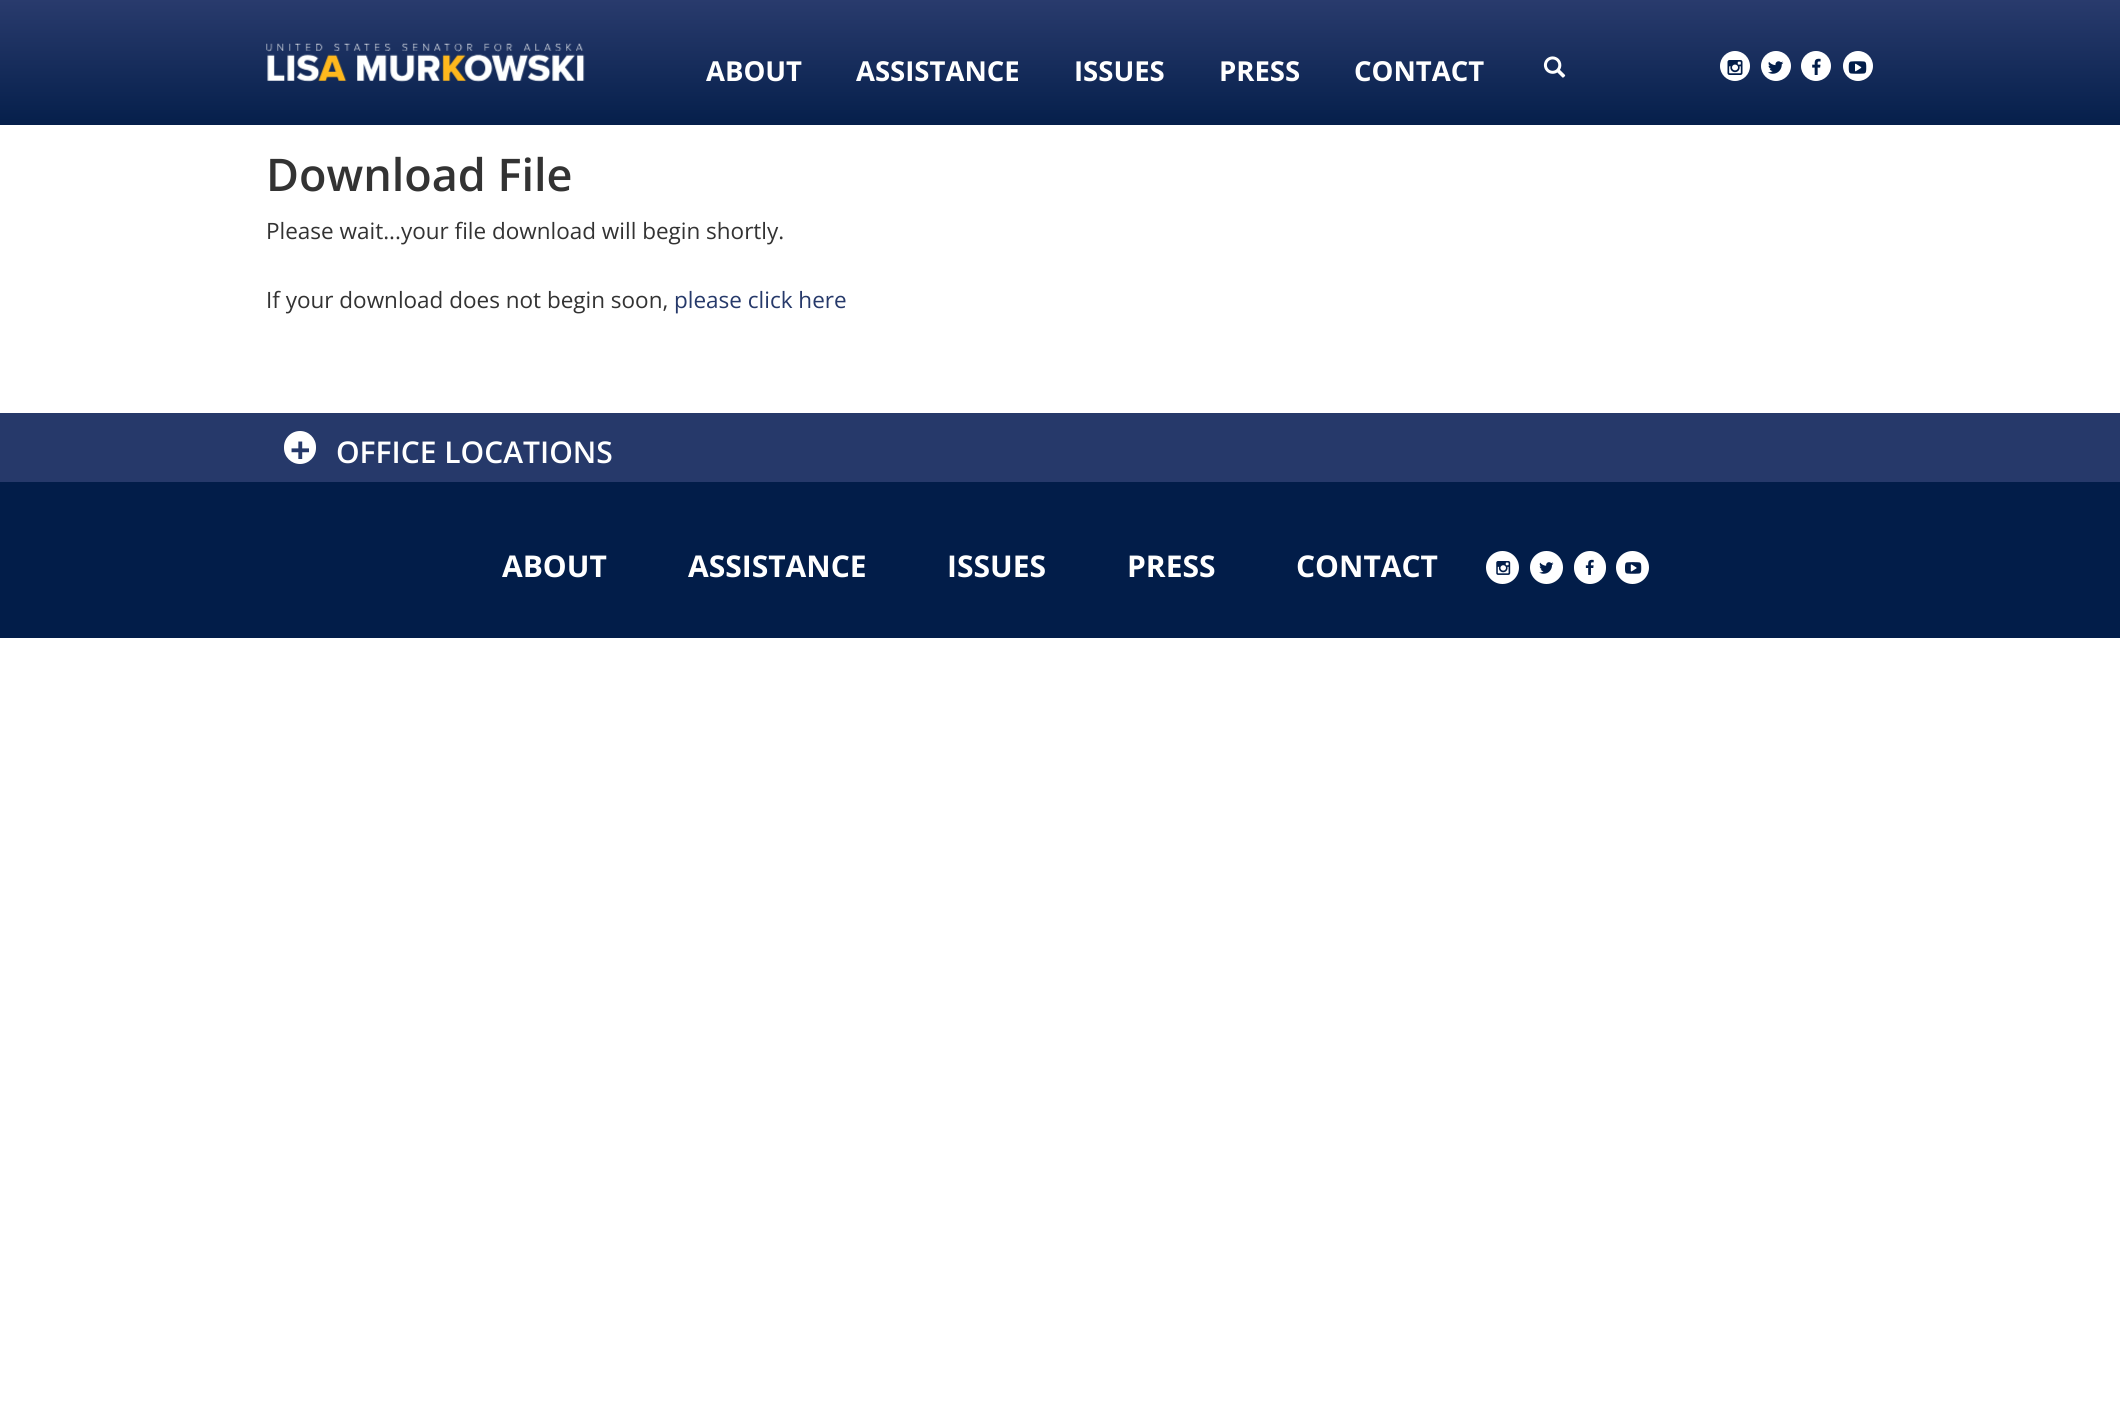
import math
import cairo

surface = cairo.ImageSurface(cairo.Format.RGB24, 2120, 1403)
ctx = cairo.Context(surface)
options = cairo.FontOptions()
options.set_hint_metrics(cairo.HintMetrics.OFF)
options.set_hint_style(cairo.HintStyle.NONE)
ctx.set_font_options(options)
ctx.set_miter_limit(4)


def ink(r, g, b):
    ctx.set_source_rgb(r / 255, g / 255, b / 255)


def write(x, y, s, family, size, color, bold=False, italic=False):
    ctx.select_font_face(family, cairo.FontSlant.ITALIC if italic else cairo.FontSlant.NORMAL, cairo.FontWeight.BOLD if bold else cairo.FontWeight.NORMAL)
    ctx.set_font_size(size)
    ink(*color)
    ctx.move_to(x, y)
    ctx.show_text(s)


def block(x, y, w, h, *color):
    ink(*color)
    ctx.rectangle(x, y, w, h)
    ctx.fill()


def round_path(x, y, w, h, r):
    ctx.new_sub_path()
    for i, (u, v) in enumerate([(x + w - r, y + h - r), (x + r, y + h - r), (x + r, y + r), (x + w - r, y + r)]):
        ctx.arc(u, v, r, i * math.pi / 2, (i + 1) * math.pi / 2)
    ctx.close_path()


def paste(path, x, y, w, h):
    ctx.save()
    ctx.set_source_surface(cairo.ImageSurface.create_from_png(path), x, y)
    ctx.rectangle(x, y, w, h)
    ctx.fill()
    ctx.restore()


s1 = dict(family="Open Sans", size=27.5, color=(255, 255, 255), bold=True)
s2 = dict(family="Open Sans SemiBold", size=45, color=(51, 51, 51))
s3 = dict(family="Open Sans", size=22.5, color=(51, 51, 51))
s4 = dict(family="Open Sans", size=22.5, color=(38, 57, 106))
s5 = dict(family="Open Sans", size=36, color=(38, 57, 106), bold=True)
s6 = dict(family="Open Sans SemiBold", size=30, color=(255, 255, 255))
s7 = dict(family="Open Sans", size=30, color=(255, 255, 255), bold=True)

ink(255, 255, 255)
ctx.paint()
gradient = cairo.LinearGradient(1060, 0, 1060, 125)
gradient.add_color_stop_rgba(0, 0.161, 0.231, 0.427, 1)
gradient.add_color_stop_rgba(1, 0.02, 0.122, 0.294, 1)
ctx.set_source(gradient)
ctx.rectangle(0, 0, 2120, 125)
ctx.fill()
paste("pic1.png", 266, 43, 319, 39)
write(706, 81, "ABOUT", **s1)
write(856, 81, "ASSISTANCE", **s1)
write(1074, 81, "ISSUES", **s1)
write(1219, 81, "PRESS", **s1)
write(1354, 81, "CONTACT", **s1)
paste("pic2.png", 1543, 56, 23, 22)
ctx.arc(1735, 66, 15, 0, 2 * math.pi)
ctx.fill()
paste("pic3.png", 1727, 60, 16, 15)
ctx.arc(1776, 66, 15, 0, 2 * math.pi)
ctx.fill()
paste("pic4.png", 1768, 61, 16, 13)
ctx.arc(1816, 66, 15, 0, 2 * math.pi)
ctx.fill()
paste("pic5.png", 1812, 58, 9, 17)
ctx.arc(1858, 66, 15, 0, 2 * math.pi)
ctx.fill()
paste("pic6.png", 1848, 61, 19, 13)
write(266, 191, "Download File", **s2)
write(266, 239, "Please wait...your file download will begin shortly.", **s3)
write(266, 308, "If your download does not begin soon,", **s3)
write(674, 308, "please click here", **s4)
block(0, 413, 2120, 69, 38, 57, 106)
ink(255, 255, 255)
round_path(284, 431, 32, 33, 16)
ctx.fill()
write(290, 463, "+", **s5)
write(336, 463, "OFFICE LOCATIONS", **s6)
block(0, 482, 2120, 156, 2, 29, 73)
write(502, 577, "ABOUT", **s7)
write(688, 577, "ASSISTANCE", **s7)
write(947, 577, "ISSUES", **s7)
write(1127, 577, "PRESS", **s7)
write(1296, 577, "CONTACT", **s7)
ctx.new_path()
ctx.arc(1502.5, 567.5, 16.5, 0, 2 * math.pi)
ctx.fill()
paste("pic7.png", 1496, 561, 15, 14)
ctx.arc(1546.5, 567.5, 16.5, 0, 2 * math.pi)
ctx.fill()
paste("pic8.png", 1539, 562, 15, 12)
round_path(1574, 551, 32, 33, 16)
ctx.fill()
paste("pic9.png", 1585, 559, 9, 16)
ctx.arc(1632.5, 567.5, 16.5, 0, 2 * math.pi)
ctx.fill()
paste("pic10.png", 1625, 562, 17, 12)
surface.write_to_png("screenshot.png")
